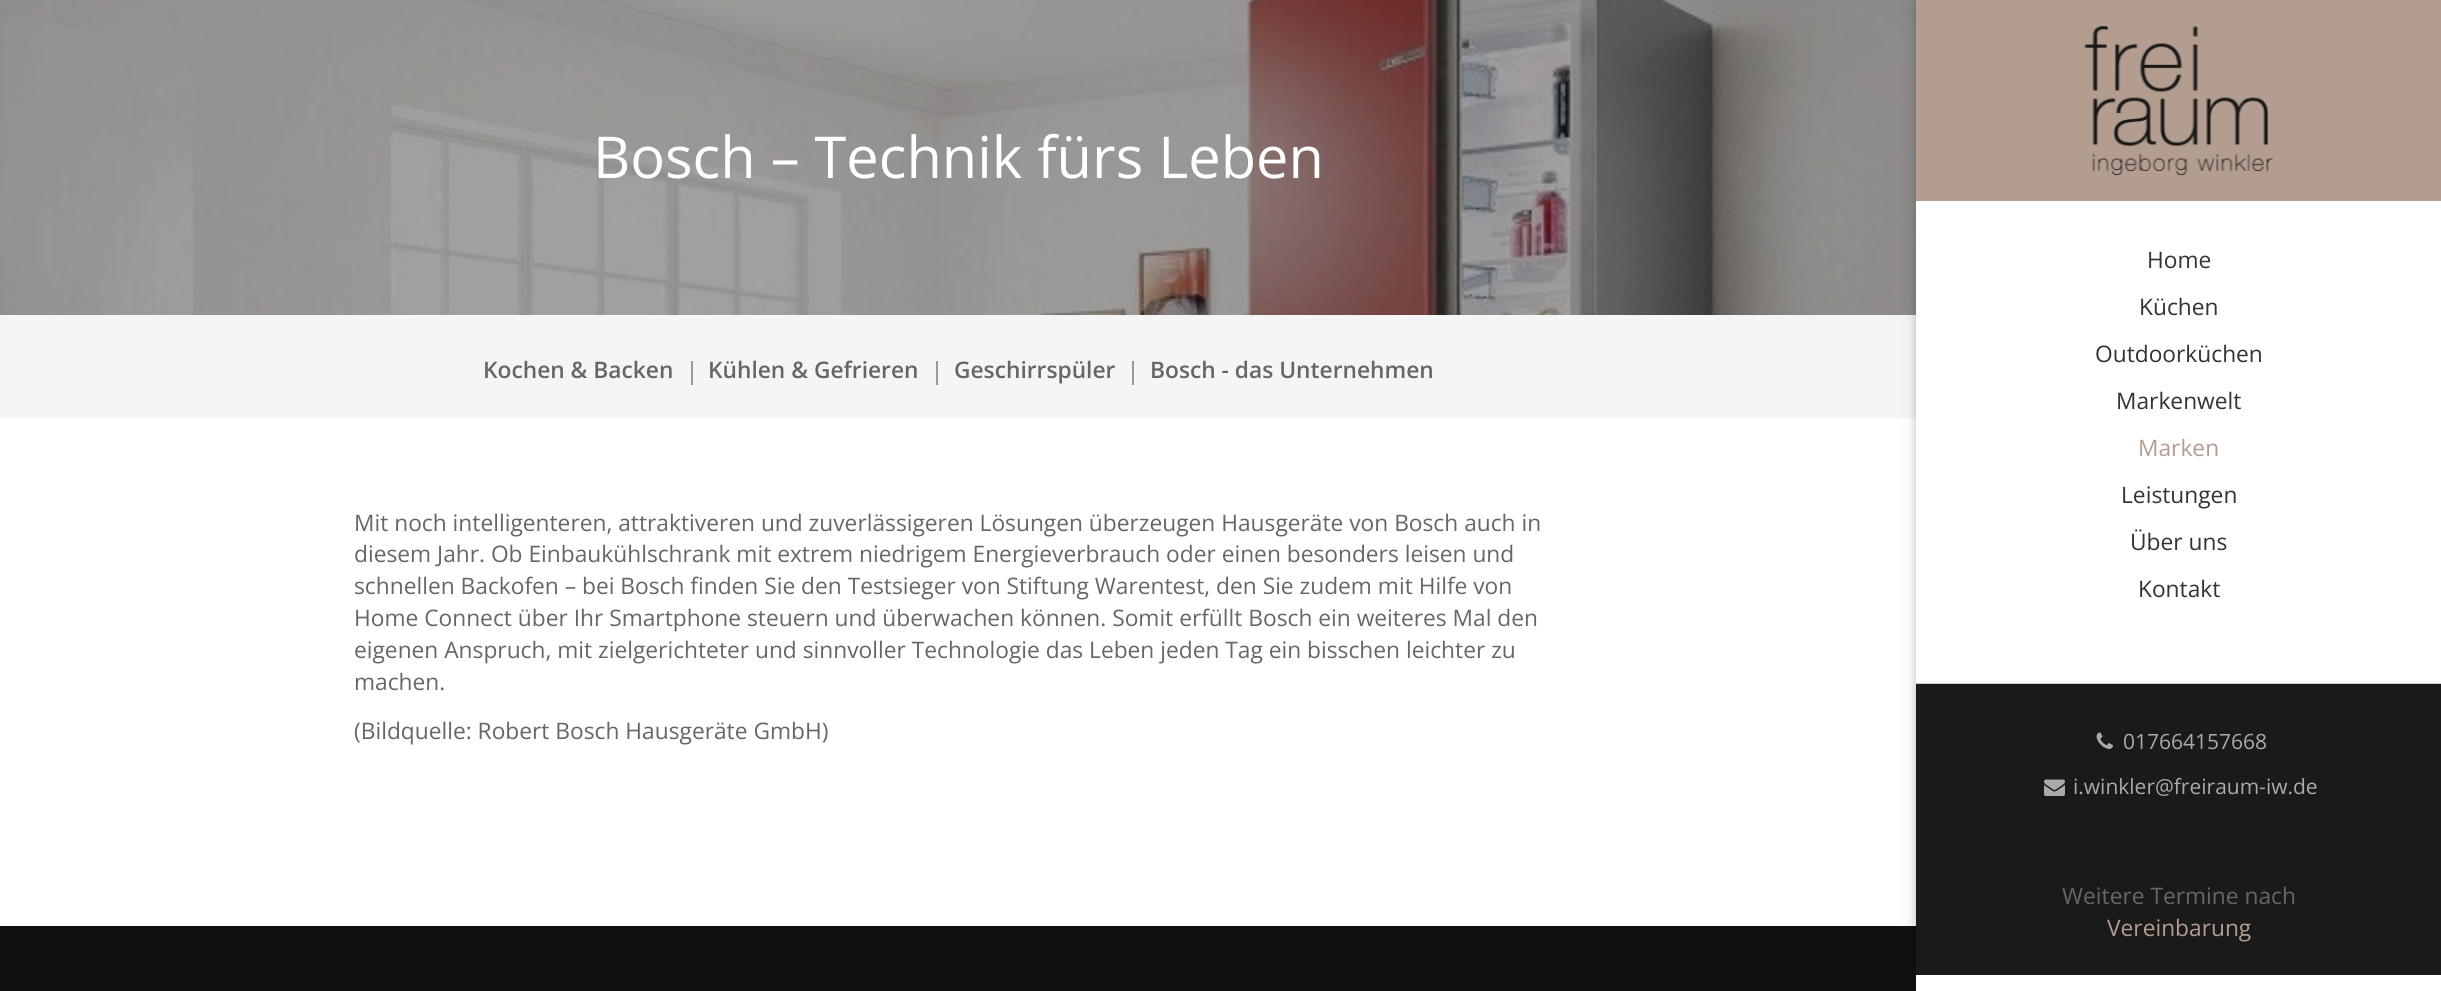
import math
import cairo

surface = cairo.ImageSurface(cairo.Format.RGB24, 2441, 991)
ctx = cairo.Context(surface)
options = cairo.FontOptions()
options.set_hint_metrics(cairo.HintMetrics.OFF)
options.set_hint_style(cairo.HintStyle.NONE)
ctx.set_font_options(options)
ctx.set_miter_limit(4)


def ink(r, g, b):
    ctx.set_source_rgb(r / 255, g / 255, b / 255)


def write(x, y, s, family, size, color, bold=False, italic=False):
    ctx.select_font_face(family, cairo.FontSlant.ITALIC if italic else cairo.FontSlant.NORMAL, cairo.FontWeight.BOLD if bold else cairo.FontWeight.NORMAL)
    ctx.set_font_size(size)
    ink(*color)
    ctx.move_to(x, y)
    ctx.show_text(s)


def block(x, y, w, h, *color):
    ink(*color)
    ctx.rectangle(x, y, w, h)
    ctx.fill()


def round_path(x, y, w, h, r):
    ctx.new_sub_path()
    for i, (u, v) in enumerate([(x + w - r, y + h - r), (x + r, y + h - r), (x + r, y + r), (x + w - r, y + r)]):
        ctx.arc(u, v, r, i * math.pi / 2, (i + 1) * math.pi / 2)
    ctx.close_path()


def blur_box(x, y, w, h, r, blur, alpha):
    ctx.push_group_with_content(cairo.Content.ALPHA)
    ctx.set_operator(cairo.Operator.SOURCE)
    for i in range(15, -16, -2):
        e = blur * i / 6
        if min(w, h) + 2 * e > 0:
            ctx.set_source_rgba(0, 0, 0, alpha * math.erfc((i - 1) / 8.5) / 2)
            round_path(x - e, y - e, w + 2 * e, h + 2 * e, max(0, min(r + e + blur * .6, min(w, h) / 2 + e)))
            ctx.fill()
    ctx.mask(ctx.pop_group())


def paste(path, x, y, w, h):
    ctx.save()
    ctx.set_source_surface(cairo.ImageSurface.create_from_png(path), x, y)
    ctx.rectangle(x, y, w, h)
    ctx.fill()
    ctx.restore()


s1 = dict(family="Open Sans", size=57.75, color=(255, 255, 255))
s2 = dict(family="Open Sans SemiBold", size=22.75, color=(102, 102, 102))
s3 = dict(family="Open Sans", size=22.75, color=(102, 102, 102))
s4 = dict(family="Open Sans", size=22.75, color=(51, 51, 51))
s5 = dict(family="Open Sans", size=22.75, color=(179, 157, 145))
s6 = dict(family="Open Sans", size=21, color=(170, 170, 170))

ink(255, 255, 255)
ctx.paint()
paste("pic1.png", 0, 0, 1916, 315)
write(593, 178, "Bosch – Technik fürs Leben", **s1)
block(0, 315, 1916, 103, 245, 245, 245)
write(483, 378, "Kochen & Backen", **s2)
block(691, 361, 2, 24, 153, 153, 153)
write(708, 378, "Kühlen & Gefrieren", **s2)
block(936, 361, 2, 24, 153, 153, 153)
write(954, 378, "Geschirrspüler", **s2)
block(1132, 361, 2, 24, 153, 153, 153)
write(1150, 378, "Bosch - das Unternehmen", **s2)
write(354, 531, "Mit noch intelligenteren, attraktiveren und zuverlässigeren Lösungen überzeugen Hausgeräte von Bosch auch in", **s3)
write(354, 562, "diesem Jahr. Ob Einbaukühlschrank mit extrem niedrigem Energieverbrauch oder einen besonders leisen und", **s3)
write(354, 594, "schnellen Backofen – bei Bosch finden Sie den Testsieger von Stiftung Warentest, den Sie zudem mit Hilfe von", **s3)
write(354, 626, "Home Connect über Ihr Smartphone steuern und überwachen können. Somit erfüllt Bosch ein weiteres Mal den", **s3)
write(354, 658, "eigenen Anspruch, mit zielgerichteter und sinnvoller Technologie das Leben jeden Tag ein bisschen leichter zu", **s3)
write(354, 690, "machen.", **s3)
write(354, 739, "(Bildquelle: Robert Bosch Hausgeräte GmbH)", **s3)
block(0, 926, 1916, 65, 17, 17, 17)
ink(0, 0, 0)
blur_box(1916, 4, 525, 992, 0, 9, 0.12)
blur_box(1916, 0, 525, 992, 0, 4.5, 0.16)
block(1916, 201, 525, 790, 255, 255, 255)
block(1916, 683, 525, 1, 204, 204, 204)
block(1916, 0, 525, 201, 179, 157, 145)
paste("pic2.png", 2084, 26, 189, 150)
write(2147, 268, "Home", **s4)
write(2139, 315, "Küchen", **s4)
write(2095, 362, "Outdoorküchen", **s4)
write(2116, 409, "Markenwelt", **s4)
write(2138, 456, "Marken", **s5)
write(2121, 503, "Leistungen", **s4)
write(2130, 550, "Über uns", **s4)
write(2138, 597, "Kontakt", **s4)
block(1916, 684, 525, 291, 26, 26, 26)
paste("pic3.png", 2096, 732, 17, 17)
write(2123, 749, "017664157668", **s6)
paste("pic4.png", 2044, 779, 21, 17)
write(2073, 794, "i.winkler@freiraum-iw.de", **s6)
write(2062, 904, "Weitere Termine nach", **s3)
write(2107, 936, "Vereinbarung", **s5)
surface.write_to_png("screenshot.png")
